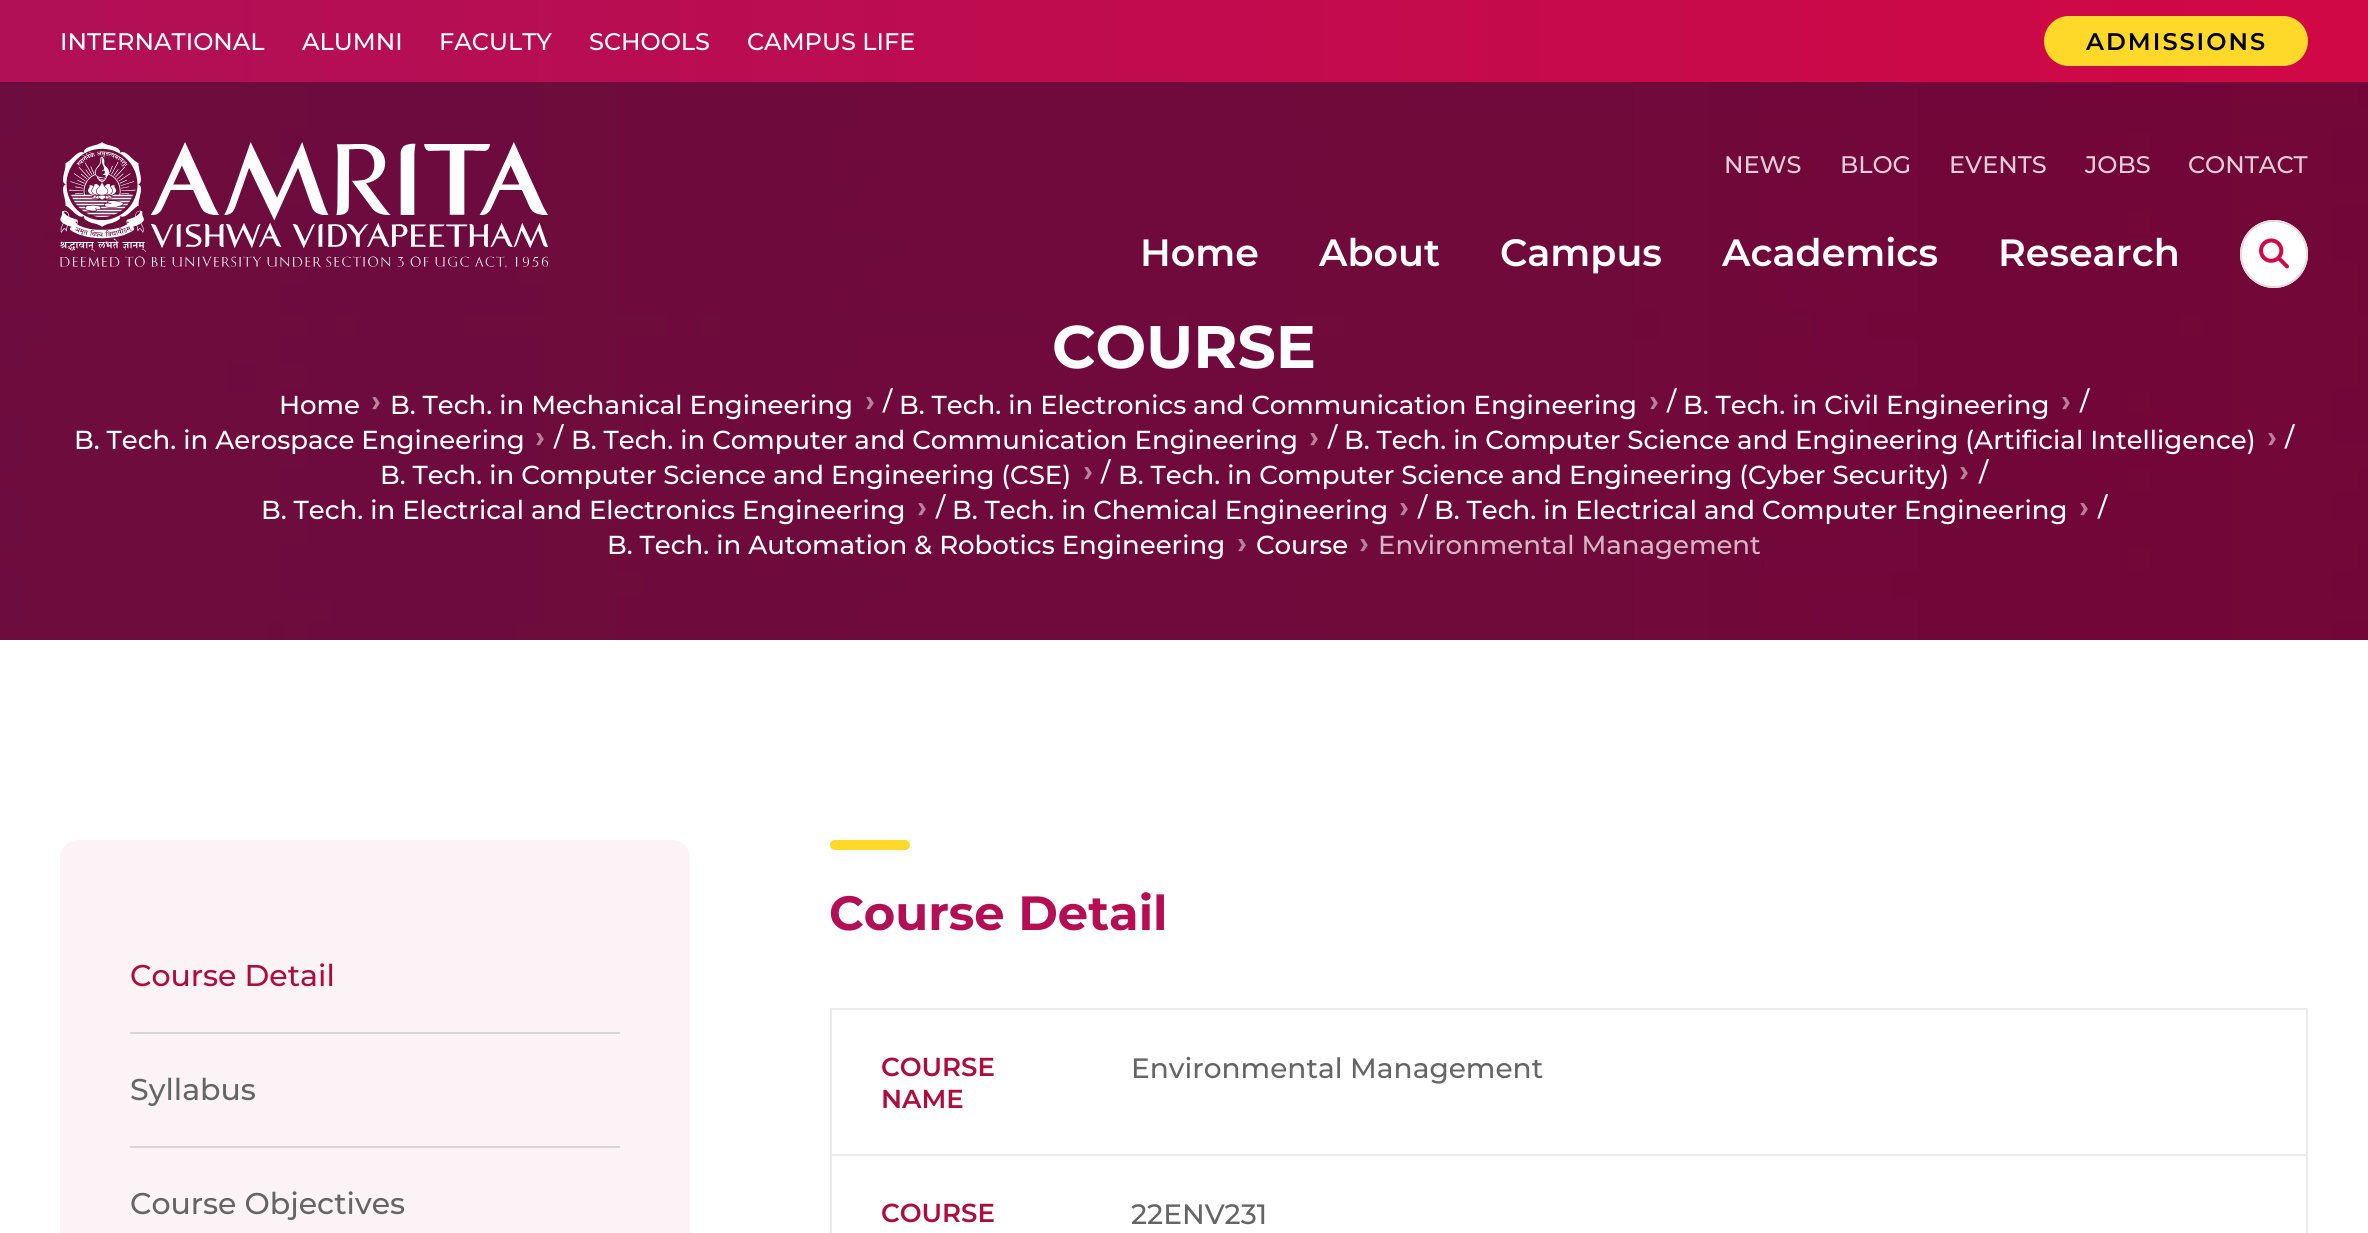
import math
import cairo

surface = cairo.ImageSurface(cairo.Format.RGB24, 2368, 1233)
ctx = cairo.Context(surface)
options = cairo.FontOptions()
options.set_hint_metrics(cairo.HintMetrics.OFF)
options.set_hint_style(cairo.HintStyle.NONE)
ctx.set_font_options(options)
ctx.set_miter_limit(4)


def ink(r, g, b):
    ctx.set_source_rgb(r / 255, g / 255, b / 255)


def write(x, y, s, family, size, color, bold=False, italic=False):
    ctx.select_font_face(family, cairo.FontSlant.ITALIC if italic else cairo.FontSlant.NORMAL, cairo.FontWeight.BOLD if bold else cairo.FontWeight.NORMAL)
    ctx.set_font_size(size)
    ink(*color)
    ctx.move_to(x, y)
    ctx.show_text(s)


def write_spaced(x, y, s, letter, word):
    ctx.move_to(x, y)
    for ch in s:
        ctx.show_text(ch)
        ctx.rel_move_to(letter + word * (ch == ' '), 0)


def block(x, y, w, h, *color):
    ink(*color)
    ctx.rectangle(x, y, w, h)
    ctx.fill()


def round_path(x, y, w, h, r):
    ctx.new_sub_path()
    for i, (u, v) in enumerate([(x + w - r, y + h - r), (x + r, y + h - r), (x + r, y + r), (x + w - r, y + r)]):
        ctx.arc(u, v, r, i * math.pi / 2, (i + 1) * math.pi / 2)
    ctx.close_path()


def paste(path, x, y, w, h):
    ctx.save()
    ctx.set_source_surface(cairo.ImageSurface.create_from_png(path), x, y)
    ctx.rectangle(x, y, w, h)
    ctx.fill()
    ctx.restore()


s1 = dict(family="Montserrat Medium", size=24, color=(255, 255, 255))
s2 = dict(family="Montserrat Medium", size=24, color=(227, 206, 216))
s3 = dict(family="Montserrat SemiBold", size=38, color=(255, 255, 255))
s4 = dict(family="Montserrat", size=60, color=(255, 255, 255), bold=True)
s5 = dict(family="Montserrat Medium", size=26, color=(255, 255, 255))
s6 = dict(family="Montserrat Medium", size=26, color=(212, 181, 196))
s7 = dict(family="Montserrat Medium", size=30, color=(175, 12, 62))
s8 = dict(family="Montserrat Medium", size=30, color=(101, 101, 101))
s9 = dict(family="Montserrat SemiBold", size=26, color=(175, 12, 62))
s10 = dict(family="Montserrat Medium", size=28, color=(101, 101, 101))

ink(255, 255, 255)
ctx.paint()
gradient = cairo.LinearGradient(0, 41, 2368, 41)
gradient.add_color_stop_rgba(0.03, 0.694, 0.059, 0.337, 1)
gradient.add_color_stop_rgba(0.97, 0.816, 0.031, 0.275, 1)
ctx.set_source(gradient)
ctx.rectangle(0, 0, 2368, 82)
ctx.fill()
write(60, 50, "INTERNATIONAL", **s1)
write(302, 50, "ALUMNI", **s1)
write(439, 50, "FACULTY", **s1)
write(589, 50, "SCHOOLS", **s1)
write(747, 50, "CAMPUS LIFE", **s1)
ink(255, 217, 42)
round_path(2044, 16, 264, 50, 25)
ctx.fill()
ctx.select_font_face("Montserrat SemiBold")
ink(0, 0, 0)
write_spaced(2086, 50, "ADMISSIONS", 2, 0)
paste("pic3.png", 0, 82, 2368, 558)
paste("pic1.png", 60, 142, 489, 126)
write(1724, 173, "NEWS", **s2)
write(1840, 173, "BLOG", **s2)
write(1949, 173, "EVENTS", **s2)
write(2085, 173, "JOBS", **s2)
write(2188, 173, "CONTACT", **s2)
write(1140, 266, "Home", **s3)
write(1319, 266, "About", **s3)
write(1500, 266, "Campus", **s3)
write(1722, 266, "Academics", **s3)
write(1998, 266, "Research", **s3)
ctx.new_path()
ctx.arc(2274, 254, 34, 0, 2 * math.pi)
ctx.fill()
paste("pic2.png", 2259, 238, 30, 31)
ctx.arc(2274, 254, 33, 0, 2 * math.pi)
ink(221, 221, 221)
ctx.stroke()
write(1052, 368, "COURSE", **s4)
write(279, 414, "Home", **s5)
paste("pic4.png", 372, 397, 8, 13)
write(390, 414, "B. Tech. in Mechanical Engineering", **s5)
paste("pic5.png", 866, 397, 8, 13)
write(883, 410, "/", **s5)
write(899, 414, "B. Tech. in Electronics and Communication Engineering", **s5)
paste("pic6.png", 1650, 397, 8, 13)
write(1667, 410, "/", **s5)
write(1683, 414, "B. Tech. in Civil Engineering", **s5)
paste("pic7.png", 2062, 397, 8, 13)
write(2080, 410, "/", **s5)
write(74, 449, "B. Tech. in Aerospace Engineering", **s5)
paste("pic8.png", 536, 433, 8, 13)
write(554, 446, "/", **s5)
write(571, 449, "B. Tech. in Computer and Communication Engineering", **s5)
paste("pic9.png", 1310, 433, 8, 13)
write(1328, 446, "/", **s5)
write(1344, 449, "B. Tech. in Computer Science and Engineering (Artificial Intelligence)", **s5)
paste("pic10.png", 2268, 433, 8, 13)
write(2285, 446, "/", **s5)
write(380, 484, "B. Tech. in Computer Science and Engineering (CSE)", **s5)
paste("pic5.png", 1084, 467, 8, 13)
write(1101, 481, "/", **s5)
write(1118, 484, "B. Tech. in Computer Science and Engineering (Cyber Security)", **s5)
paste("pic11.png", 1960, 467, 8, 13)
write(1979, 481, "/", **s5)
write(261, 519, "B. Tech. in Electrical and Electronics Engineering", **s5)
paste("pic5.png", 918, 503, 8, 13)
write(936, 516, "/", **s5)
write(952, 519, "B. Tech. in Chemical Engineering", **s5)
paste("pic9.png", 1400, 503, 8, 13)
write(1418, 516, "/", **s5)
write(1434, 519, "B. Tech. in Electrical and Computer Engineering", **s5)
paste("pic7.png", 2080, 503, 8, 13)
write(2098, 516, "/", **s5)
write(607, 554, "B. Tech. in Automation & Robotics Engineering", **s5)
paste("pic5.png", 1238, 539, 8, 13)
write(1256, 554, "Course", **s5)
paste("pic9.png", 1360, 539, 8, 13)
write(1378, 554, "Environmental Management", **s6)
ink(251, 243, 245)
round_path(60, 840, 630, 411, 18)
ctx.fill()
block(130, 1032, 490, 2, 214, 214, 214)
write(130, 986, "Course Detail", **s7)
block(130, 1146, 490, 2, 214, 214, 214)
write(130, 1100, "Syllabus", **s8)
write(130, 1214, "Course Objectives", **s8)
ink(255, 217, 42)
round_path(830, 840, 80, 10, 5)
ctx.fill()
ctx.select_font_face("Montserrat", cairo.FontSlant.NORMAL, cairo.FontWeight.BOLD)
ctx.set_font_size(48)
gradient = cairo.LinearGradient(829, 894, 2308, 894)
gradient.add_color_stop_rgba(0.03, 0.694, 0.059, 0.337, 1)
gradient.add_color_stop_rgba(0.97, 0.816, 0.031, 0.275, 1)
ctx.set_source(gradient)
ctx.move_to(829, 930)
ctx.show_text("Course Detail")
block(830, 1008, 1478, 2, 236, 235, 235)
block(2306, 1008, 2, 225, 236, 235, 235)
block(830, 1008, 2, 225, 236, 235, 235)
write(881, 1076, "COURSE", **s9)
write(881, 1108, "NAME", **s9)
block(830, 1154, 1478, 2, 236, 235, 235)
write(1131, 1078, "Environmental Management", **s10)
write(881, 1222, "COURSE", **s9)
write(1131, 1224, "22ENV231", **s10)
surface.write_to_png("screenshot.png")
